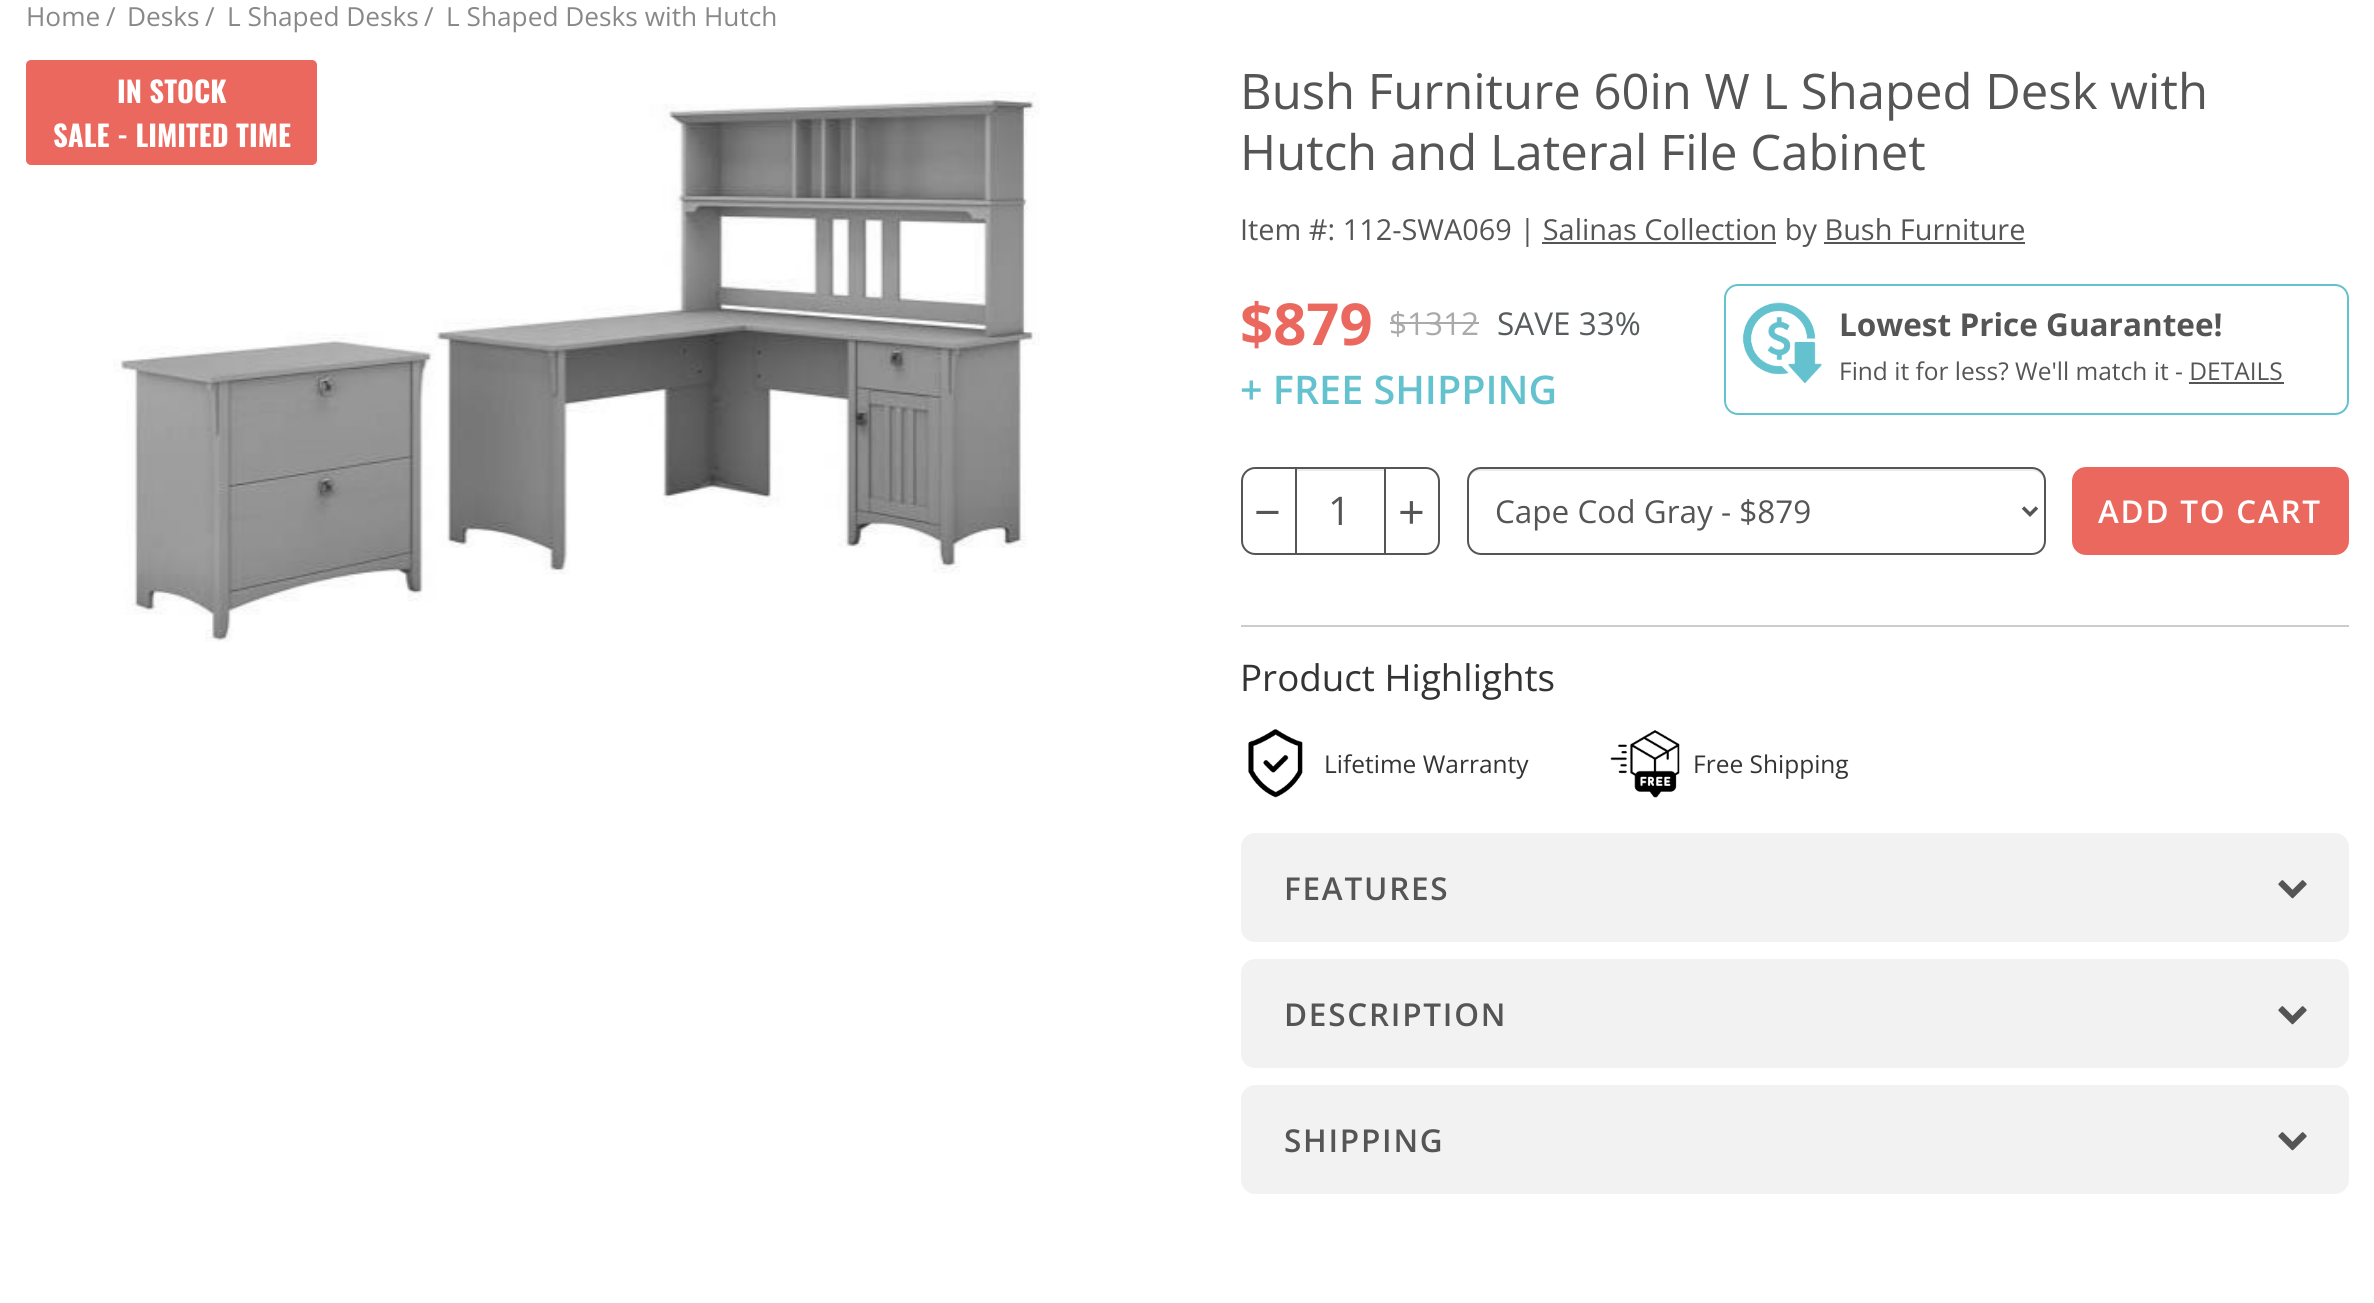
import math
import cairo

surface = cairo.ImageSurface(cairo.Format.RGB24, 2374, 1303)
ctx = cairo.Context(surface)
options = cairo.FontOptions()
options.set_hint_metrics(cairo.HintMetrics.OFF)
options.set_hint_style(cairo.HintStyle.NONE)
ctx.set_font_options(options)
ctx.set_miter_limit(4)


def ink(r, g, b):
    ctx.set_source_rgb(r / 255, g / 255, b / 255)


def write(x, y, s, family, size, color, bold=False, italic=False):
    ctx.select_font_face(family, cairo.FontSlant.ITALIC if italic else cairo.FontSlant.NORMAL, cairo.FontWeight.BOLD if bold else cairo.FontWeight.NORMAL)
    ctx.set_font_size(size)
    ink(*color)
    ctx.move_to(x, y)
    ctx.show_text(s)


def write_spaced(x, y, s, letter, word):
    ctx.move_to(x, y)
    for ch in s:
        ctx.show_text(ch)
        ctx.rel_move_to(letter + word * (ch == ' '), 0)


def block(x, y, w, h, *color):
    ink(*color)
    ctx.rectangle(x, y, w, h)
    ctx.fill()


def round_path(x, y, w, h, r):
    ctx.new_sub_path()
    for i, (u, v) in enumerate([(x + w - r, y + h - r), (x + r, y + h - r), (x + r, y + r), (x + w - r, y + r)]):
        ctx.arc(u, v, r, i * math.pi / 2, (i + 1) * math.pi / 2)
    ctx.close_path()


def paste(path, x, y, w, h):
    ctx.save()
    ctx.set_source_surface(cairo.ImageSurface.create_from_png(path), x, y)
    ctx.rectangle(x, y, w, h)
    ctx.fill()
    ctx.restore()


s1 = dict(family="Open Sans", size=26.25, color=(136, 136, 136))
s2 = dict(family="Oswald", size=28.9, color=(255, 255, 255), bold=True)
s3 = dict(family="Open Sans", size=49, color=(85, 85, 85))
s4 = dict(family="Open Sans", size=28.9, color=(85, 85, 85))
s5 = dict(family="Open Sans", size=58, color=(235, 104, 94), bold=True)
s6 = dict(family="Open Sans", size=31.5, color=(170, 170, 170))
s7 = dict(family="Open Sans", size=31.5, color=(86, 92, 93))
s8 = dict(family="Open Sans SemiBold", size=39.5, color=(100, 194, 207))
s9 = dict(family="Open Sans", size=31.5, color=(85, 85, 85), bold=True)
s10 = dict(family="Open Sans", size=24.5, color=(85, 85, 85))
s11 = dict(family="Open Sans", size=47, color=(85, 85, 85))
s12 = dict(family="Open Sans", size=39.5, color=(85, 85, 85))
s13 = dict(family="Open Sans", size=31.5, color=(85, 85, 85))
s14 = dict(family="Open Sans", size=36.75, color=(51, 51, 51))
s15 = dict(family="Open Sans", size=24.5, color=(51, 51, 51))

ink(255, 255, 255)
ctx.paint()
write(26, 26, "Home", **s1)
write(106, 26, "/", **s1)
write(127, 26, "Desks", **s1)
write(205, 26, "/", **s1)
write(227, 26, "L Shaped Desks", **s1)
write(424, 26, "/", **s1)
write(446, 26, "L Shaped Desks with Hutch", **s1)
paste("pic1.png", 113, 91, 927, 551)
ink(235, 104, 94)
round_path(26, 60, 291, 105, 5)
ctx.fill()
write(117, 103, "IN STOCK", **s2)
write(53, 147, "SALE - LIMITED TIME", **s2)
write(1240, 109, "Bush Furniture 60in W L Shaped Desk with", **s3)
write(1240, 170, "Hutch and Lateral File Cabinet", **s3)
write(1240, 240, "Item #: 112-SWA069 | Salinas Collection by Bush Furniture", **s4)
block(1542, 242, 234, 2, 85, 85, 85)
block(1824, 242, 201, 2, 85, 85, 85)
write(1240, 345, "$879", **s5)
write(1389, 335, "$1312", **s6)
block(1390, 322, 89, 2, 170, 170, 170)
write(1497, 335, "SAVE 33%", **s7)
write(1240, 404, "+ FREE SHIPPING", **s8)
round_path(1725, 285, 623, 129, 13)
ctx.stroke()
paste("pic2.png", 1742, 302, 80, 82)
write(1839, 336, "Lowest Price Guarantee!", **s9)
write(1839, 380, "Find it for less? We'll match it - DETAILS", **s10)
block(2189, 382, 95, 2, 85, 85, 85)
ctx.new_path()
ctx.move_to(1255, 468)
ctx.line_to(1296, 468)
ctx.line_to(1296, 554)
ctx.line_to(1255, 554)
ctx.curve_to(1248, 554, 1242, 548, 1242, 541)
ctx.line_to(1242, 481)
ctx.curve_to(1242, 474, 1248, 468, 1255, 468)
ctx.close_path()
ctx.stroke()
write(1254, 529, "−", **s11)
block(1297, 469, 87, 2, 236, 236, 236)
block(1297, 467, 87, 2, 85, 85, 85)
block(1297, 553, 87, 2, 85, 85, 85)
write(1328, 525, "1", **s12)
ctx.new_path()
ctx.move_to(1385, 468)
ctx.line_to(1426, 468)
ctx.curve_to(1433, 468, 1439, 474, 1439, 481)
ctx.line_to(1439, 541)
ctx.curve_to(1439, 548, 1433, 554, 1426, 554)
ctx.line_to(1385, 554)
ctx.close_path()
ctx.stroke()
write(1398, 529, "+", **s11)
ink(236, 236, 236)
ctx.new_path()
ctx.move_to(1480, 471)
ctx.line_to(2032, 471)
ctx.curve_to(2039, 471, 2044, 476, 2044, 483)
ctx.line_to(2044, 481)
ctx.curve_to(2044, 474, 2039, 469, 2032, 469)
ctx.line_to(1480, 469)
ctx.curve_to(1473, 469, 1468, 474, 1468, 481)
ctx.line_to(1468, 483)
ctx.curve_to(1468, 476, 1474, 471, 1480, 471)
ctx.close_path()
ctx.fill()
round_path(1468, 468, 577, 86, 13)
ink(85, 85, 85)
ctx.stroke()
ctx.new_path()
ctx.move_to(2023, 507.5)
ctx.line_to(2030, 514.5)
ctx.line_to(2037, 507.5)
ctx.set_line_width(3.5)
ctx.stroke()
write(1495, 523, "Cape Cod Gray - $879", **s13)
ink(235, 104, 94)
round_path(2072, 467, 277, 88, 14)
ctx.fill()
ctx.select_font_face("Open Sans SemiBold")
ink(255, 255, 255)
write_spaced(2098, 523, "ADD TO CART", 1.75, 0)
block(1241, 625, 1108, 2, 204, 204, 204)
write(1240, 691, "Product Highlights", **s14)
paste("pic3.png", 1248, 729, 55, 69)
write(1324, 773, "Lifetime Warranty", **s15)
paste("pic4.png", 1610, 730, 70, 68)
write(1693, 773, "Free Shipping", **s15)
ink(242, 242, 242)
round_path(1241, 833, 1108, 109, 14)
ctx.fill()
ctx.select_font_face("Open Sans SemiBold")
ctx.set_font_size(31.5)
ink(85, 85, 85)
write_spaced(1284, 900, "FEATURES", 1.75, 0)
paste("pic5.png", 2278, 880, 29, 19)
ink(242, 242, 242)
round_path(1241, 959, 1108, 109, 14)
ctx.fill()
ink(85, 85, 85)
write_spaced(1284, 1026, "DESCRIPTION", 1.75, 0)
paste("pic5.png", 2278, 1006, 29, 19)
ink(242, 242, 242)
round_path(1241, 1085, 1108, 109, 14)
ctx.fill()
ink(85, 85, 85)
write_spaced(1284, 1152, "SHIPPING", 1.75, 0)
paste("pic5.png", 2278, 1132, 29, 19)
surface.write_to_png("screenshot.png")
